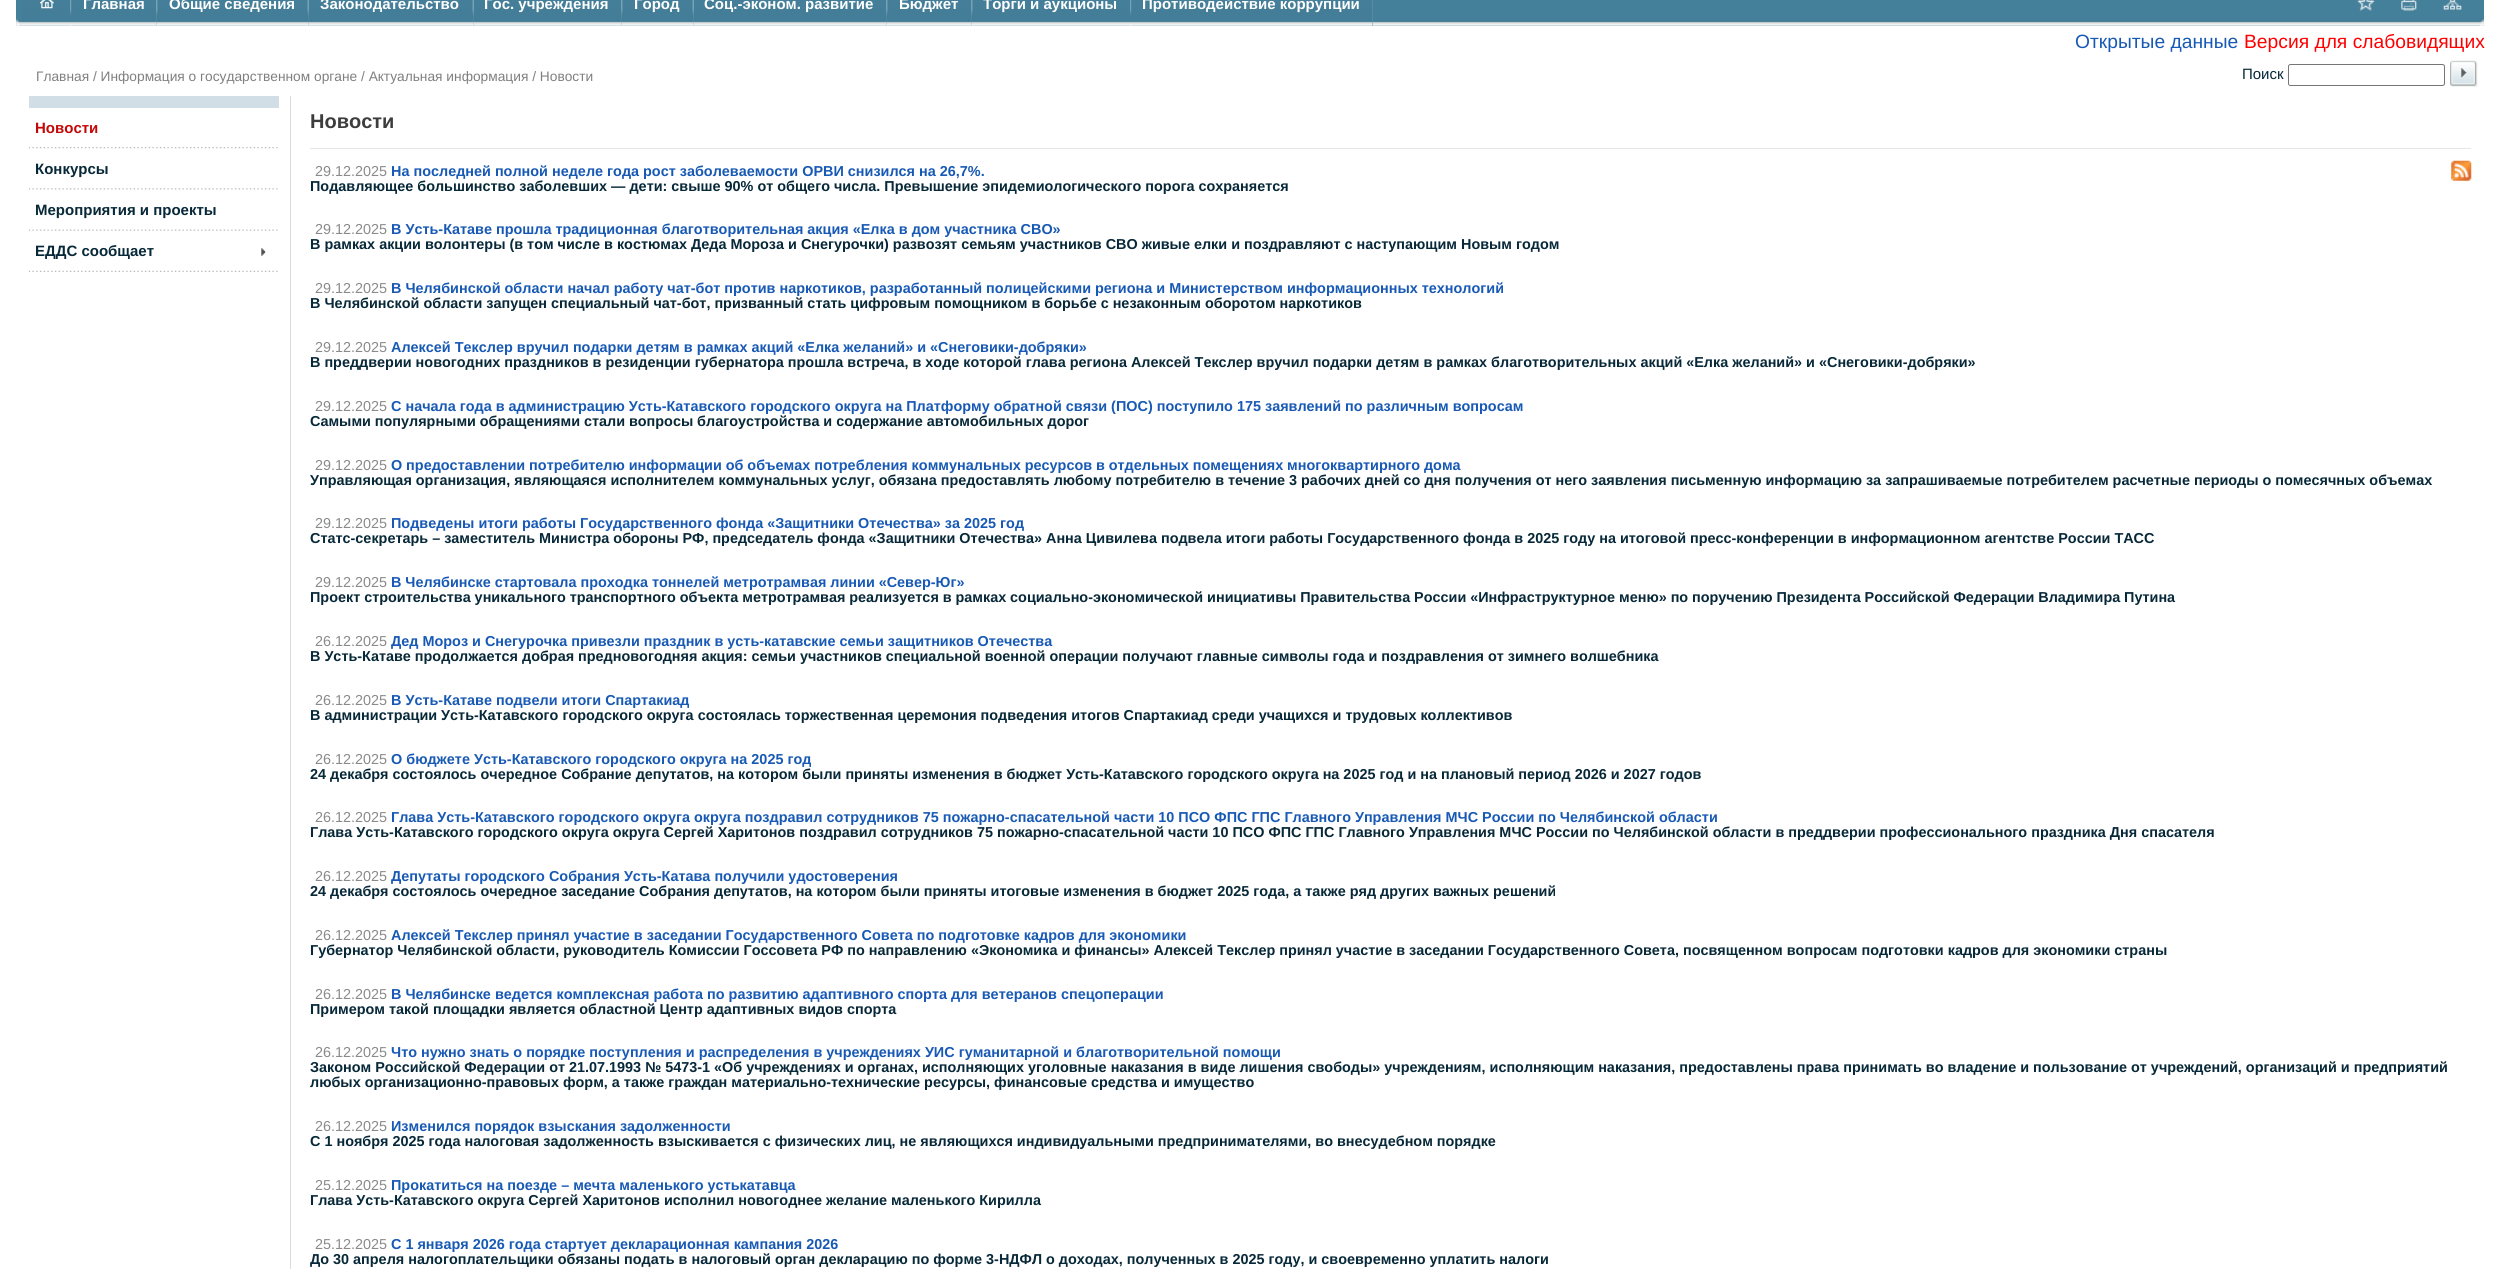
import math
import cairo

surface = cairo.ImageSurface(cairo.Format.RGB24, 2499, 1269)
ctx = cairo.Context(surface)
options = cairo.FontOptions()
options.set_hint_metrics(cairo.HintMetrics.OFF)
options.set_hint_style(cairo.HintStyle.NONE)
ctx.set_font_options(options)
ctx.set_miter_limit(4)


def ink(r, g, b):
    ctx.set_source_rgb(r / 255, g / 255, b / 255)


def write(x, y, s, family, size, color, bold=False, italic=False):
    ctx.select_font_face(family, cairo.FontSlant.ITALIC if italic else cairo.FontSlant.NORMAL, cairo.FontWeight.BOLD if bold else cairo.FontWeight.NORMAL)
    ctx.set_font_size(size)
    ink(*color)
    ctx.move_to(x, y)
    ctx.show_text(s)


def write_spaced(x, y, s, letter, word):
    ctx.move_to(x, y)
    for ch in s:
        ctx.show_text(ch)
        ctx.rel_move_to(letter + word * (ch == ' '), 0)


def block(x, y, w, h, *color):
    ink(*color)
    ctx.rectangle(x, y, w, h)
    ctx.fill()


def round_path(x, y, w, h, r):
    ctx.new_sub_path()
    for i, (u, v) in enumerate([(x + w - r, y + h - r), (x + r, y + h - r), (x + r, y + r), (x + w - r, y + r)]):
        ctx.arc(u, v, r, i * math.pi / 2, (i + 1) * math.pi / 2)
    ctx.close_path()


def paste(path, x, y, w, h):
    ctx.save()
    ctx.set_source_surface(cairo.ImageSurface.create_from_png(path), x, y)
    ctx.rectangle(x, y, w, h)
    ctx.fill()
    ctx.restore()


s1 = dict(family="Liberation Sans", size=15, color=(255, 255, 255), bold=True)
s2 = dict(family="Liberation Sans", size=19.25, color=(23, 89, 180))
s3 = dict(family="Liberation Sans", size=19.25, color=(255, 0, 0))
s4 = dict(family="Liberation Sans", size=13.75, color=(127, 127, 127))
s5 = dict(family="Liberation Sans", size=15, color=(7, 40, 56))
s6 = dict(family="Liberation Sans", size=15, color=(195, 8, 8), bold=True)
s7 = dict(family="Liberation Sans", size=15, color=(7, 40, 56), bold=True)
s8 = dict(family="Liberation Sans", size=20, color=(61, 61, 61), bold=True)
s9 = dict(family="Liberation Sans", size=14.41, color=(138, 138, 138))
s10 = dict(family="Liberation Sans", size=14.42, color=(23, 89, 180), bold=True)
s11 = dict(family="Liberation Sans", size=14.41, color=(7, 40, 56), bold=True)

ink(255, 255, 255)
ctx.paint()
block(16, 0, 2468, 26, 69, 128, 155)
paste("pic1.png", 16, 20, 2468, 6)
paste("pic2.png", 16, 19, 4, 7)
block(23, 0, 1350, 26, 94, 155, 184)
paste("pic3.png", 22, 0, 1351, 26)
paste("pic4.png", 40, 0, 14, 9)
paste("pic5.png", 70, 0, 2, 26)
write(83, 9, "Главная", **s1)
block(156, 0, 1, 26, 113, 167, 192)
paste("pic6.png", 156, 0, 2, 26)
write(169, 9, "Общие сведения", **s1)
block(308, 0, 1, 26, 113, 167, 192)
paste("pic7.png", 307, 0, 2, 26)
write(320, 9, "Законодательство", **s1)
block(473, 0, 1, 26, 113, 167, 192)
paste("pic7.png", 472, 0, 2, 26)
write(484, 9, "Гос. учреждения", **s1)
block(621, 0, 1, 26, 113, 167, 192)
paste("pic6.png", 621, 0, 2, 26)
write(634, 9, "Город", **s1)
block(693, 0, 1, 26, 113, 167, 192)
paste("pic7.png", 692, 0, 2, 26)
write(704, 9, "Соц.-эконом. развитие", **s1)
block(886, 0, 1, 26, 113, 167, 192)
paste("pic6.png", 886, 0, 2, 26)
write(899, 9, "Бюджет", **s1)
block(971, 0, 1, 26, 113, 167, 192)
paste("pic6.png", 971, 0, 2, 26)
write(983, 9, "Торги и аукционы", **s1)
paste("pic5.png", 1130, 0, 2, 26)
write(1142, 9, "Противодействие коррупции", **s1)
paste("pic8.png", 2480, 18, 4, 8)
paste("pic9.png", 2357, 0, 18, 11)
paste("pic10.png", 2401, 0, 16, 11)
paste("pic11.png", 2443, 0, 19, 10)
write(2075, 48, "Открытые данные", **s2)
write(2244, 48, "Версия для слабовидящих", **s3)
write(36, 81, "Главная / Информация о государственном органе / Актуальная информация / Новости", **s4)
write(2242, 79, "Поиск", **s5)
round_path(2288.5, 64.5, 156, 21, 2)
ink(118, 118, 118)
ctx.set_line_width(1)
ctx.stroke()
paste("pic12.png", 2450, 60, 28, 27)
block(290, 96, 1, 1173, 219, 219, 219)
block(29, 96, 250, 12, 209, 222, 229)
write(35, 133, "Новости", **s6)
paste("pic13.png", 28, 147, 250, 2)
write(35, 174, "Конкурсы", **s7)
paste("pic14.png", 28, 188, 250, 2)
write(35, 215, "Мероприятия и проекты", **s7)
paste("pic15.png", 28, 229, 250, 2)
paste("pic16.png", 261, 248, 5, 8)
write(35, 256, "ЕДДС сообщает", **s7)
paste("pic17.png", 28, 270, 250, 2)
block(310, 148, 2161, 1, 228, 231, 233)
write(310, 128, "Новости", **s8)
write(315, 176, "29.12.2025", **s9)
write(391, 176, "На последней полной неделе года рост заболеваемости ОРВИ снизился на 26,7%.", **s10)
write(310, 191, "Подавляющее большинство заболевших — дети: свыше 90% от общего числа. Превышение эпидемиологического порога сохраняется", **s11)
write(315, 234, "29.12.2025", **s9)
write(391, 234, "В Усть-Катаве прошла традиционная благотворительная акция «Елка в дом участника СВО»", **s10)
write(310, 249, "В рамках акции волонтеры (в том числе в костюмах Деда Мороза и Снегурочки) развозят семьям участников СВО живые елки и поздравляют с наступающим Новым годом", **s11)
write(315, 293, "29.12.2025", **s9)
write(391, 293, "В Челябинской области начал работу чат-бот против наркотиков, разработанный полицейскими региона и Министерством информационных технологий", **s10)
write(310, 308, "В Челябинской области запущен специальный чат-бот, призванный стать цифровым помощником в борьбе с незаконным оборотом наркотиков", **s11)
write(315, 352, "29.12.2025", **s9)
write(391, 352, "Алексей Текслер вручил подарки детям в рамках акций «Елка желаний» и «Снеговики-добряки»", **s10)
write(310, 367, "В преддверии новогодних праздников в резиденции губернатора прошла встреча, в ходе которой глава региона Алексей Текслер вручил подарки детям в рамках благотворительных акций «Елка желаний» и «Снеговики-добряки»", **s11)
write(315, 411, "29.12.2025", **s9)
write(391, 411, "С начала года в администрацию Усть-Катавского городского округа на Платформу обратной связи (ПОС) поступило 175 заявлений по различным вопросам", **s10)
ctx.set_font_size(14.41)
ink(7, 40, 56)
write_spaced(310, 426, "Самыми популярными обращениями стали вопросы благоустройства и содержание автомобильных дорог", 0, -0.1)
write(315, 470, "29.12.2025", **s9)
ctx.select_font_face("Liberation Sans", cairo.FontSlant.NORMAL, cairo.FontWeight.BOLD)
ctx.set_font_size(14.42)
ink(23, 89, 180)
write_spaced(391, 470, "О предоставлении потребителю информации об объемах потребления коммунальных ресурсов в отдельных помещениях многоквартирного дома", 0, -0.1)
write(310, 485, "Управляющая организация, являющаяся исполнителем коммунальных услуг, обязана предоставлять любому потребителю в течение 3 рабочих дней со дня получения от него заявления письменную информацию за запрашиваемые потребителем расчетные периоды о помесячных объемах", **s11)
write(315, 528, "29.12.2025", **s9)
write(391, 528, "Подведены итоги работы Государственного фонда «Защитники Отечества» за 2025 год", **s10)
write(310, 543, "Статс-секретарь – заместитель Министра обороны РФ, председатель фонда «Защитники Отечества» Анна Цивилева подвела итоги работы Государственного фонда в 2025 году на итоговой пресс-конференции в информационном агентстве России ТАСС", **s11)
write(315, 587, "29.12.2025", **s9)
ctx.select_font_face("Liberation Sans", cairo.FontSlant.NORMAL, cairo.FontWeight.BOLD)
ctx.set_font_size(14.42)
ink(23, 89, 180)
write_spaced(391, 587, "В Челябинске стартовала проходка тоннелей метротрамвая линии «Север-Юг»", 0, -0.1)
ctx.set_font_size(14.41)
ink(7, 40, 56)
write_spaced(310, 602, "Проект строительства уникального транспортного объекта метротрамвая реализуется в рамках социально-экономической инициативы Правительства России «Инфраструктурное меню» по поручению Президента Российской Федерации Владимира Путина", 0, -0.1)
write(315, 646, "26.12.2025", **s9)
write(391, 646, "Дед Мороз и Снегурочка привезли праздник в усть-катавские семьи защитников Отечества", **s10)
write(310, 661, "В Усть-Катаве продолжается добрая предновогодняя акция: семьи участников специальной военной операции получают главные символы года и поздравления от зимнего волшебника", **s11)
write(315, 705, "26.12.2025", **s9)
write(391, 705, "В Усть-Катаве подвели итоги Спартакиад", **s10)
write(310, 720, "В администрации Усть-Катавского городского округа состоялась торжественная церемония подведения итогов Спартакиад среди учащихся и трудовых коллективов", **s11)
write(315, 764, "26.12.2025", **s9)
write(391, 764, "О бюджете Усть-Катавского городского округа на 2025 год", **s10)
write(310, 779, "24 декабря состоялось очередное Собрание депутатов, на котором были приняты изменения в бюджет Усть-Катавского городского округа на 2025 год и на плановый период 2026 и 2027 годов", **s11)
write(315, 822, "26.12.2025", **s9)
write(391, 822, "Глава Усть-Катавского городского округа округа поздравил сотрудников 75 пожарно-спасательной части 10 ПСО ФПС ГПС Главного Управления МЧС России по Челябинской области", **s10)
write(310, 837, "Глава Усть-Катавского городского округа округа Сергей Харитонов поздравил сотрудников 75 пожарно-спасательной части 10 ПСО ФПС ГПС Главного Управления МЧС России по Челябинской области в преддверии профессионального праздника Дня спасателя", **s11)
write(315, 881, "26.12.2025", **s9)
write(391, 881, "Депутаты городского Собрания Усть-Катава получили удостоверения", **s10)
write(310, 896, "24 декабря состоялось очередное заседание Собрания депутатов, на котором были приняты итоговые изменения в бюджет 2025 года, а также ряд других важных решений", **s11)
write(315, 940, "26.12.2025", **s9)
write(391, 940, "Алексей Текслер принял участие в заседании Государственного Совета по подготовке кадров для экономики", **s10)
write(310, 955, "Губернатор Челябинской области, руководитель Комиссии Госсовета РФ по направлению «Экономика и финансы» Алексей Текслер принял участие в заседании Государственного Совета, посвященном вопросам подготовки кадров для экономики страны", **s11)
write(315, 999, "26.12.2025", **s9)
write(391, 999, "В Челябинске ведется комплексная работа по развитию адаптивного спорта для ветеранов спецоперации", **s10)
write(310, 1014, "Примером такой площадки является областной Центр адаптивных видов спорта", **s11)
write(315, 1057, "26.12.2025", **s9)
write(391, 1057, "Что нужно знать о порядке поступления и распределения в учреждениях УИС гуманитарной и благотворительной помощи", **s10)
write(310, 1072, "Законом Российской Федерации от 21.07.1993 № 5473-1 «Об учреждениях и органах, исполняющих уголовные наказания в виде лишения свободы» учреждениям, исполняющим наказания, предоставлены права принимать во владение и пользование от учреждений, организаций и предприятий", **s11)
write(310, 1087, "любых организационно-правовых форм, а также граждан материально-технические ресурсы, финансовые средства и имущество", **s11)
write(315, 1131, "26.12.2025", **s9)
write(391, 1131, "Изменился порядок взыскания задолженности", **s10)
write(310, 1146, "С 1 ноября 2025 года налоговая задолженность взыскивается с физических лиц, не являющихся индивидуальными предпринимателями, во внесудебном порядке", **s11)
write(315, 1190, "25.12.2025", **s9)
write(391, 1190, "Прокатиться на поезде – мечта маленького устькатавца", **s10)
write(310, 1205, "Глава Усть-Катавского округа Сергей Харитонов исполнил новогоднее желание маленького Кирилла", **s11)
write(315, 1249, "25.12.2025", **s9)
write(391, 1249, "С 1 января 2026 года стартует декларационная кампания 2026", **s10)
write(310, 1264, "До 30 апреля налогоплательщики обязаны подать в налоговый орган декларацию по форме 3-НДФЛ о доходах, полученных в 2025 году, и своевременно уплатить налоги", **s11)
paste("pic18.png", 2451, 160, 21, 21)
surface.write_to_png("screenshot.png")
